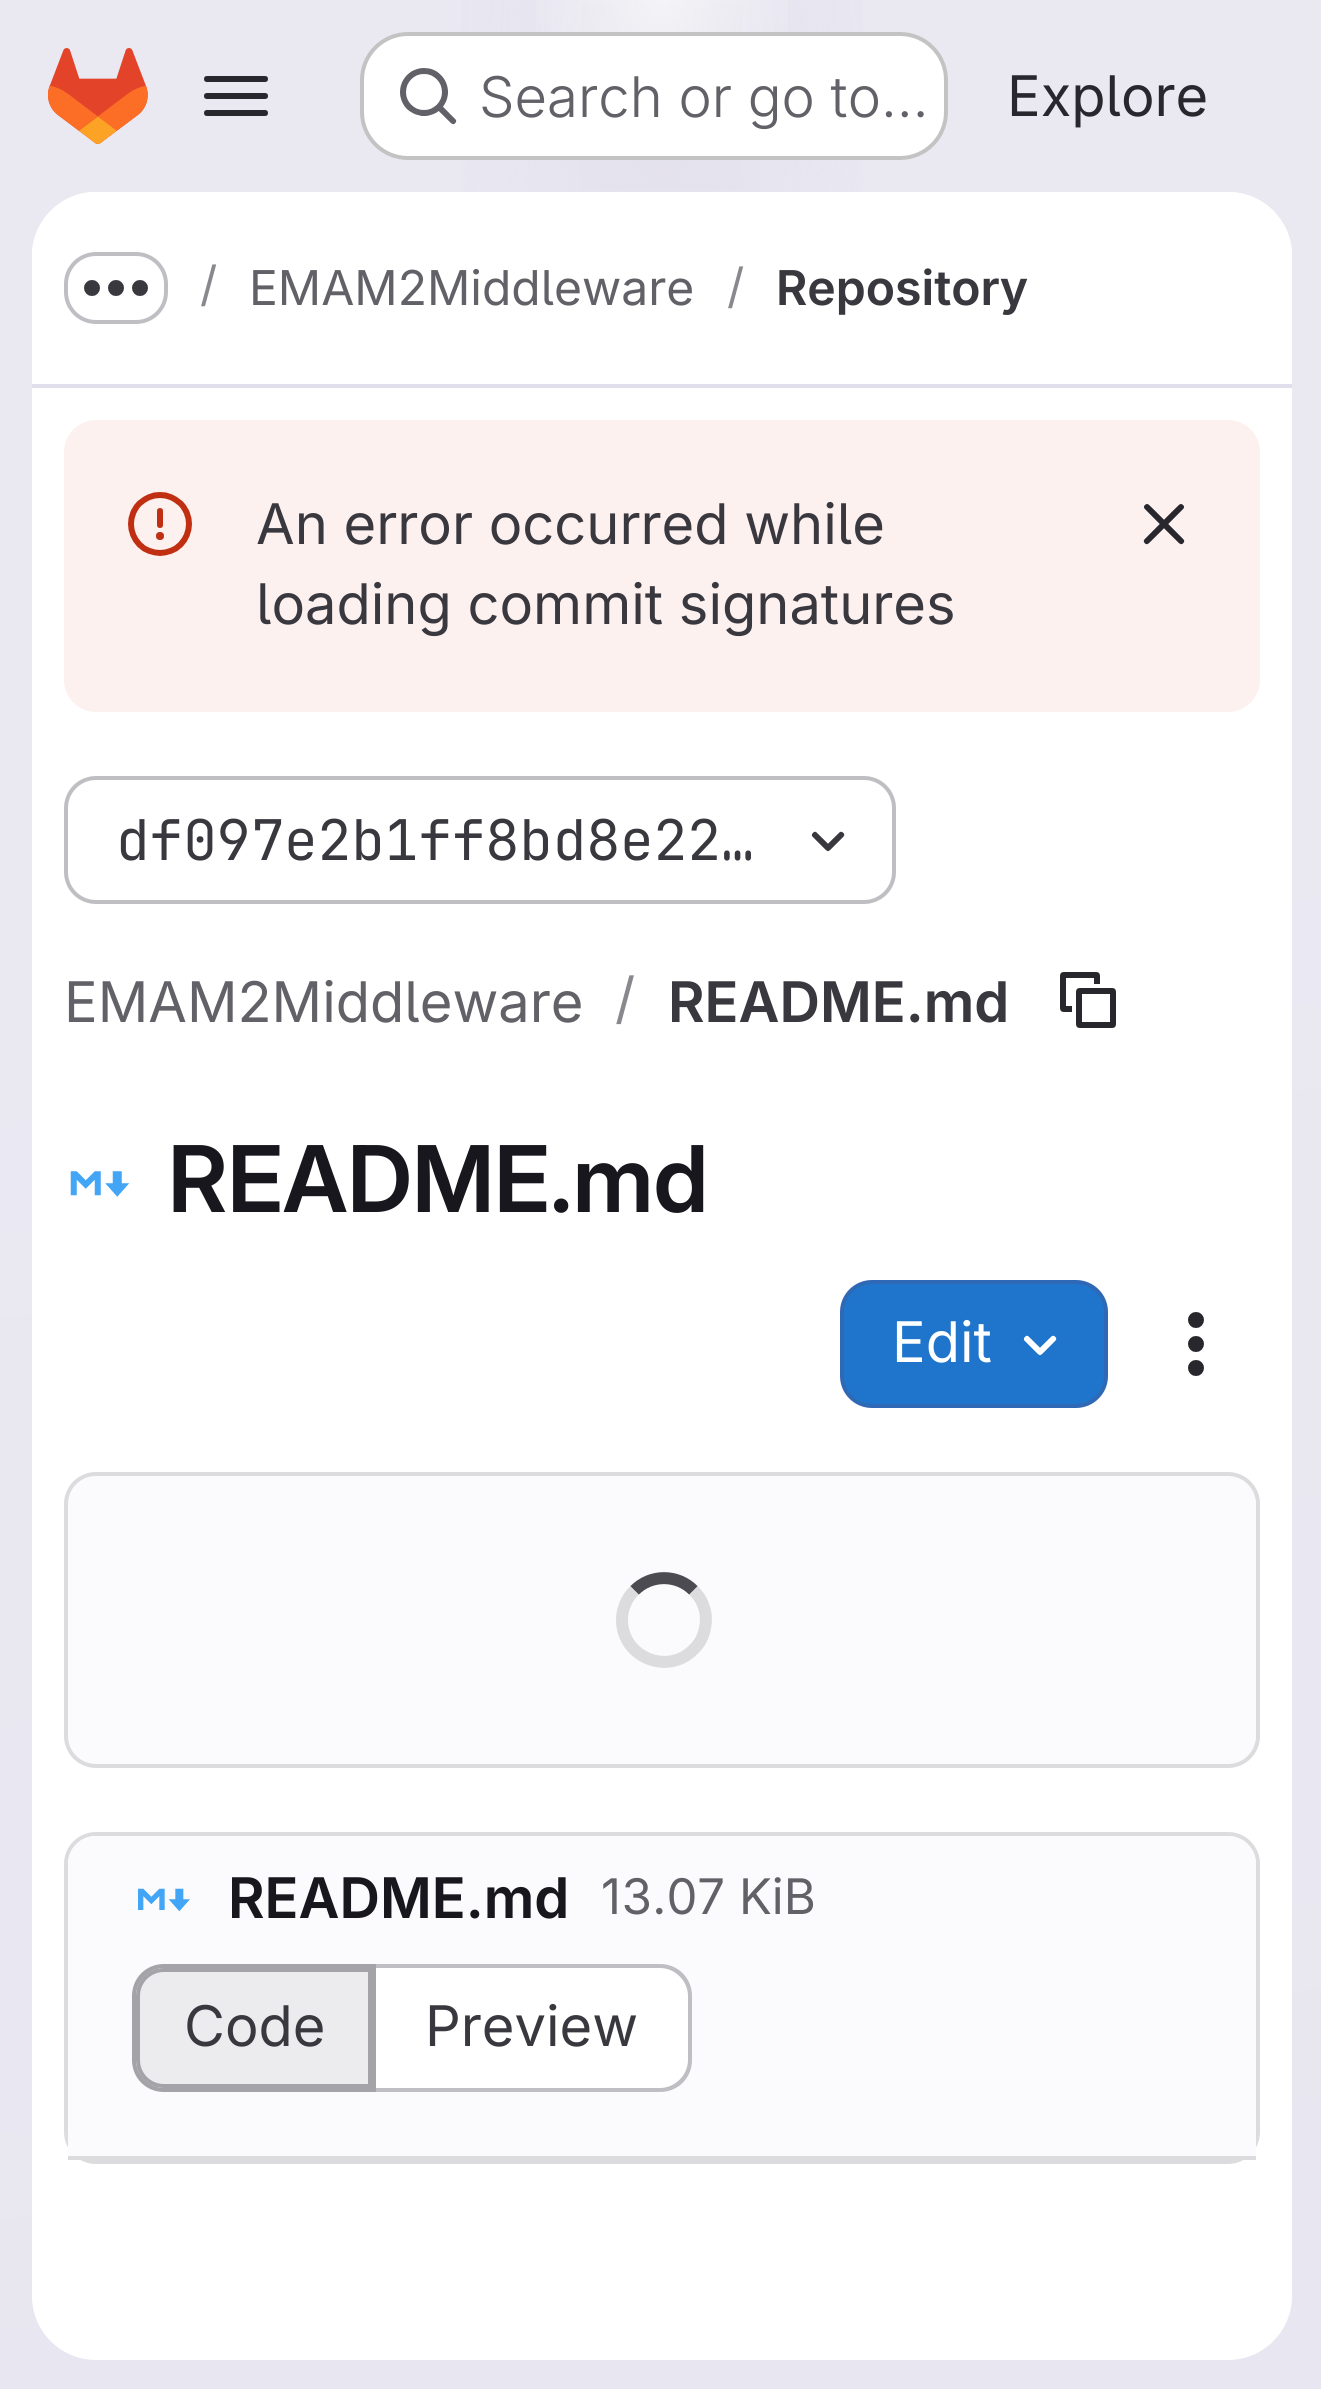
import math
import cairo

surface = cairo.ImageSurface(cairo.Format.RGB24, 1321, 2389)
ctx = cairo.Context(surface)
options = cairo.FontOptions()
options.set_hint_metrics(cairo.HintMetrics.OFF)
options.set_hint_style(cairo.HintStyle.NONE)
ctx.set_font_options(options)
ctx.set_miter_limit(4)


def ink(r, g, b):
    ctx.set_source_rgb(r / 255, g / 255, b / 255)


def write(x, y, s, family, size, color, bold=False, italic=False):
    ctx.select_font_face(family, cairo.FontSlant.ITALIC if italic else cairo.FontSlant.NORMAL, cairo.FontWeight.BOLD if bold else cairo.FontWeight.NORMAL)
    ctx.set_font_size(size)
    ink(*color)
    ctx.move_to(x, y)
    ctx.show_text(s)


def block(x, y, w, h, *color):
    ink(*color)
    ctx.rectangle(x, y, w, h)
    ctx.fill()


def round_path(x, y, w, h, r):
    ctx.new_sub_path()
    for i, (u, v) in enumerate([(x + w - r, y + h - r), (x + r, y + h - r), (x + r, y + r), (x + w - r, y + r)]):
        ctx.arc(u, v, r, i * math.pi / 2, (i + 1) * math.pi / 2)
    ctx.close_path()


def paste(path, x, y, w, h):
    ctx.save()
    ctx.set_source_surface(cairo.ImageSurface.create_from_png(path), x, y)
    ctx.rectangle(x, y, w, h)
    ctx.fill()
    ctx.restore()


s1 = dict(family="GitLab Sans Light", size=56, color=(98, 97, 104))
s2 = dict(family="GitLab Sans", size=56, color=(40, 39, 45))
s3 = dict(family="GitLab Sans", size=48, color=(137, 136, 141))
s4 = dict(family="GitLab Sans", size=48, color=(98, 97, 104))
s5 = dict(family="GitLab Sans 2 SemiBold", size=48, color=(58, 56, 63))
s6 = dict(family="GitLab Sans", size=56, color=(58, 56, 63))
s7 = dict(family="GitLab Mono", size=56, color=(58, 56, 63))
s8 = dict(family="GitLab Sans", size=56, color=(98, 97, 104))
s9 = dict(family="GitLab Sans", size=56, color=(137, 136, 141))
s10 = dict(family="GitLab Sans 2 SemiBold", size=56, color=(58, 56, 63))
s11 = dict(family="GitLab Sans SemiBold", size=92, color=(24, 23, 29))
s12 = dict(family="GitLab Sans", size=56, color=(255, 255, 255))
s13 = dict(family="GitLab Sans 2 SemiBold", size=56, color=(24, 23, 29))
s14 = dict(family="GitLab Sans", size=49, color=(98, 97, 104))

ink(255, 255, 255)
ctx.paint()
gradient = cairo.LinearGradient(886, 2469, 438, -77)
gradient.add_color_stop_rgba(0, 0.91, 0.902, 0.941, 1)
gradient.add_color_stop_rgba(0.7, 0.918, 0.914, 0.949, 1)
ctx.set_source(gradient)
ctx.rectangle(0, 0, 1321, 2389)
ctx.fill()
gradient = cairo.RadialGradient(0, 0, 0, 0, 0, 1)
gradient.set_matrix(cairo.Matrix(1 / 662, 0, 0, 1 / 2392, -1 * 662 / 662, -1 * 0 / 2392))
gradient.add_color_stop_rgba(0, 0.894, 0.886, 0.929, 1)
gradient.add_color_stop_rgba(0.42, 0.894, 0.886, 0.929, 0)
ctx.set_source(gradient)
ctx.rectangle(461, 0, 402, 192)
ctx.fill()
gradient = cairo.RadialGradient(0, 0, 0, 0, 0, 1)
gradient.set_matrix(cairo.Matrix(1 / 662, 0, 0, 1 / 2392, -1 * 662 / 662, -1 * 0 / 2392))
gradient.add_color_stop_rgba(0, 0.894, 0.886, 0.925, 1)
gradient.add_color_stop_rgba(0.3, 0.894, 0.886, 0.925, 0)
ctx.set_source(gradient)
ctx.rectangle(581, 4, 162, 186)
ctx.fill()
gradient = cairo.RadialGradient(662, 0, 0, 662, 0, 2482)
gradient.add_color_stop_rgba(0, 1, 1, 1, 0.6)
gradient.add_color_stop_rgba(0.06, 1, 1, 1, 0)
ctx.set_source(gradient)
ctx.rectangle(535, 0, 254, 32)
ctx.fill()
paste("pic1.png", 48, 48, 100, 96)
paste("pic2.png", 204, 76, 64, 40)
ink(255, 255, 255)
round_path(360, 32, 588, 128, 48)
ctx.fill()
round_path(362, 34, 584, 124, 46)
ctx.set_source_rgba(0.02, 0.02, 0.024, 0.24)
ctx.set_line_width(4)
ctx.stroke()
paste("pic3.png", 400, 68, 57, 57)
write(479, 117, "Search or go to…", **s1)
write(1007, 116, "Explore", **s2)
ink(255, 255, 255)
round_path(32, 192, 1260, 2168, 64)
ctx.fill()
ctx.new_path()
ctx.move_to(96, 192)
ctx.line_to(1228, 192)
ctx.curve_to(1263.5, 192, 1292, 220.5, 1292, 256)
ctx.line_to(1292, 388)
ctx.line_to(32, 388)
ctx.line_to(32, 256)
ctx.curve_to(32, 220.5, 60.5, 192, 96, 192)
ctx.close_path()
ctx.fill()
block(32, 384, 1260, 4, 225, 223, 236)
round_path(66, 254, 100, 68, 30)
ink(191, 191, 195)
ctx.stroke()
paste("pic4.png", 84, 280, 64, 16)
write(200, 301, "/", **s3)
write(249, 305, "EMAM2Middleware", **s4)
write(727, 303, "/", **s3)
write(776, 305, "Repository", **s5)
ink(252, 241, 239)
round_path(64, 420, 1196, 292, 32)
ctx.fill()
paste("pic5.png", 128, 492, 64, 64)
write(256, 544, "An error occurred while", **s6)
write(256, 624, "loading commit signatures", **s6)
paste("pic6.png", 1143, 504, 42, 41)
round_path(66, 778, 828, 124, 30)
ink(191, 191, 195)
ctx.stroke()
write(116, 860, "df097e2b1ff8bd8e22…", **s7)
paste("pic7.png", 811, 831, 34, 21)
write(64, 1022, "EMAM2Middleware", **s8)
write(615, 1018, "/", **s9)
write(668, 1022, "README.md", **s10)
paste("pic8.png", 1060, 972, 56, 56)
paste("pic9.png", 70, 1171, 60, 26)
write(168, 1212, "README.md", **s11)
ink(31, 117, 203)
round_path(842, 1282, 264, 124, 30)
ctx.fill_preserve()
ink(47, 104, 180)
ctx.stroke()
write(892, 1362, "Edit", **s12)
paste("pic10.png", 1023, 1335, 34, 21)
paste("pic11.png", 1188, 1312, 16, 64)
ink(251, 250, 253)
round_path(66, 1474, 1192, 292, 30)
ctx.fill_preserve()
ink(220, 220, 222)
ctx.stroke()
ctx.new_path()
ctx.move_to(634.5, 1590.5)
ctx.curve_to(650.5, 1574, 677.5, 1574, 693.5, 1590.5)
ink(76, 75, 81)
ctx.set_line_width(12)
ctx.stroke()
ctx.new_path()
ctx.move_to(693.5, 1590.5)
ctx.curve_to(703.5, 1600, 708, 1614.5, 705, 1628)
ctx.curve_to(703.5, 1636.5, 699.5, 1644, 693.5, 1649.5)
ctx.curve_to(667.5, 1676, 622, 1657, 622, 1620)
ctx.curve_to(622, 1609, 626.5, 1598, 634.5, 1590.5)
ink(220, 220, 222)
ctx.stroke()
round_path(66, 1834, 1192, 328, 30)
ctx.set_line_width(4)
ctx.stroke()
ink(251, 250, 253)
ctx.new_path()
ctx.move_to(96, 1836)
ctx.line_to(1228, 1836)
ctx.curve_to(1243.5, 1836, 1256, 1848.5, 1256, 1864)
ctx.line_to(1256, 2160)
ctx.line_to(68, 2160)
ctx.line_to(68, 1864)
ctx.curve_to(68, 1848.5, 80.5, 1836, 96, 1836)
ctx.close_path()
ctx.fill()
block(68, 2156, 1188, 4, 220, 220, 222)
paste("pic12.png", 138, 1888, 52, 24)
write(228, 1918, "README.md", **s13)
write(601, 1914, "13.07 KiB", **s14)
ink(236, 236, 239)
ctx.new_path()
ctx.move_to(164, 1970)
ctx.line_to(370, 1970)
ctx.line_to(370, 2086)
ctx.line_to(164, 2086)
ctx.curve_to(149.5, 2086, 138, 2074.5, 138, 2060)
ctx.line_to(138, 1996)
ctx.curve_to(138, 1981.5, 149.5, 1970, 164, 1970)
ctx.close_path()
ctx.fill_preserve()
ink(164, 163, 168)
ctx.stroke()
ctx.set_fill_rule(cairo.FillRule.EVEN_ODD)
ctx.new_path()
ctx.move_to(164, 1964)
ctx.line_to(372, 1964)
ctx.line_to(372, 2092)
ctx.line_to(164, 2092)
ctx.curve_to(146, 2092, 132, 2078, 132, 2060)
ctx.line_to(132, 1996)
ctx.curve_to(132, 1978, 146, 1964, 164, 1964)
ctx.close_path()
ctx.move_to(164, 1968)
ctx.line_to(372, 1968)
ctx.line_to(372, 2088)
ctx.line_to(164, 2088)
ctx.curve_to(149, 2088, 136, 2075, 136, 2060)
ctx.line_to(136, 1996)
ctx.curve_to(136, 1981, 149, 1968, 164, 1968)
ctx.close_path()
ctx.fill()
write(184, 2046, "Code", **s6)
ink(255, 255, 255)
ctx.new_path()
ctx.move_to(376, 1968)
ctx.line_to(660, 1968)
ctx.curve_to(675.5, 1968, 688, 1980.5, 688, 1996)
ctx.line_to(688, 2060)
ctx.curve_to(688, 2075.5, 675.5, 2088, 660, 2088)
ctx.line_to(376, 2088)
ctx.close_path()
ctx.fill()
ink(191, 191, 195)
ctx.new_path()
ctx.move_to(376, 1964)
ctx.line_to(660, 1964)
ctx.curve_to(678, 1964, 692, 1978, 692, 1996)
ctx.line_to(692, 2060)
ctx.curve_to(692, 2078, 678, 2092, 660, 2092)
ctx.line_to(376, 2092)
ctx.close_path()
ctx.move_to(376, 1968)
ctx.line_to(660, 1968)
ctx.curve_to(675, 1968, 688, 1981, 688, 1996)
ctx.line_to(688, 2060)
ctx.curve_to(688, 2075, 675, 2088, 660, 2088)
ctx.line_to(376, 2088)
ctx.close_path()
ctx.fill()
block(372, 1964, 4, 128, 164, 163, 168)
write(425, 2046, "Preview", **s6)
surface.write_to_png("screenshot.png")
